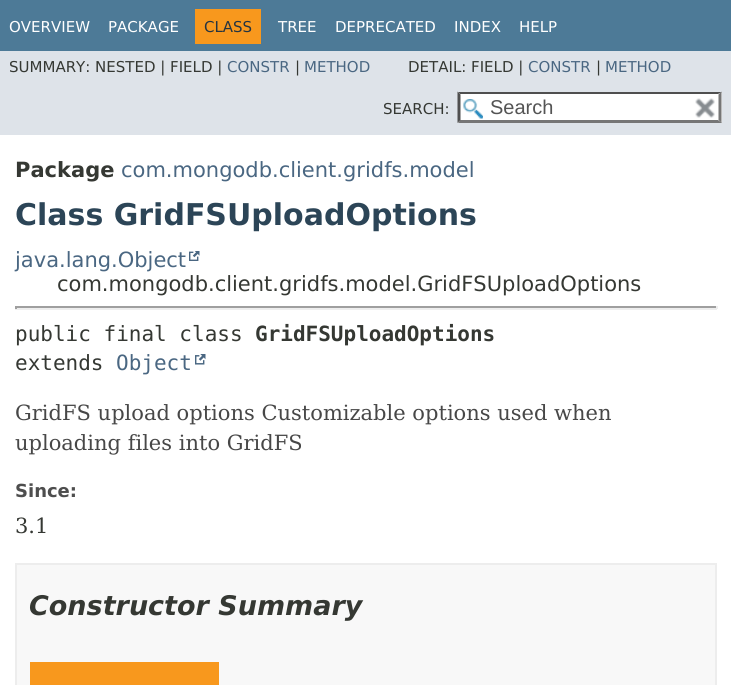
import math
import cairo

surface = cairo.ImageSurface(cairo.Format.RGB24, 731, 685)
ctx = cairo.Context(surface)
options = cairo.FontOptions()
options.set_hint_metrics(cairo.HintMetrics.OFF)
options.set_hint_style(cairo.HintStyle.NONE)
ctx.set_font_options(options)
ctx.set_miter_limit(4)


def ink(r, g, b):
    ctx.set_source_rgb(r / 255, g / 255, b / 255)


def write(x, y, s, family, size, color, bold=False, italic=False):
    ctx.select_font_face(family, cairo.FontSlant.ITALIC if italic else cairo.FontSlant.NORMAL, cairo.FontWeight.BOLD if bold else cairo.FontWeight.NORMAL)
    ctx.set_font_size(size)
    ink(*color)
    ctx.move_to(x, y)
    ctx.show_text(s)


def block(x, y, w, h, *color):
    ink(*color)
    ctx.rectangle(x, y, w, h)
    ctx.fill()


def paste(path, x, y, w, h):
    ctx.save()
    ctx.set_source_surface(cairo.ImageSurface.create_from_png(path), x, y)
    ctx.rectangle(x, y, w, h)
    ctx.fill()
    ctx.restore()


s1 = dict(family="DejaVu Sans", size=15, color=(255, 255, 255))
s2 = dict(family="DejaVu Sans", size=15, color=(37, 52, 65))
s3 = dict(family="DejaVu Sans", size=15, color=(53, 56, 51))
s4 = dict(family="DejaVu Sans", size=15, color=(74, 103, 130))
s5 = dict(family="Liberation Sans", size=20, color=(84, 84, 84))
s6 = dict(family="DejaVu Sans", size=21, color=(53, 56, 51), bold=True)
s7 = dict(family="DejaVu Sans", size=21, color=(74, 103, 130))
s8 = dict(family="DejaVu Sans", size=30, color=(44, 69, 87), bold=True)
s9 = dict(family="DejaVu Sans", size=21, color=(53, 56, 51))
s10 = dict(family="DejaVu Sans Mono", size=21, color=(53, 56, 51))
s11 = dict(family="DejaVu Sans Mono", size=21, color=(53, 56, 51), bold=True)
s12 = dict(family="DejaVu Sans Mono", size=21, color=(74, 103, 130))
s13 = dict(family="DejaVu Serif", size=21, color=(71, 71, 71))
s14 = dict(family="DejaVu Sans", size=18, color=(78, 78, 78), bold=True)
s15 = dict(family="DejaVu Serif", size=21, color=(53, 56, 51))
s16 = dict(family="DejaVu Sans", size=27, color=(53, 56, 51), bold=True, italic=True)

ink(255, 255, 255)
ctx.paint()
block(0, 0, 731, 51, 77, 122, 151)
write(9, 32, "OVERVIEW", **s1)
write(108, 32, "PACKAGE", **s1)
block(195, 9, 66, 35, 248, 152, 29)
write(204, 32, "CLASS", **s2)
write(278, 32, "TREE", **s1)
write(335, 32, "DEPRECATED", **s1)
write(454, 32, "INDEX", **s1)
write(519, 32, "HELP", **s1)
block(0, 51, 731, 84, 222, 227, 233)
write(9, 72, "SUMMARY: NESTED | FIELD |", **s3)
write(227, 72, "CONSTR", **s4)
write(295, 72, "|", **s3)
write(304, 72, "METHOD", **s4)
write(408, 72, "DETAIL: FIELD |", **s3)
write(528, 72, "CONSTR", **s4)
write(596, 72, "|", **s3)
write(605, 72, "METHOD", **s4)
write(383, 114, "SEARCH:", **s3)
block(458, 92, 264, 31, 255, 255, 255)
paste("pic1.png", 463, 99, 20, 20)
ink(79, 79, 79)
ctx.new_path()
ctx.move_to(458, 92)
ctx.line_to(722, 92)
ctx.line_to(718, 94)
ctx.line_to(460, 94)
ctx.close_path()
ctx.fill()
ink(118, 118, 118)
ctx.new_path()
ctx.move_to(721.5, 91.5)
ctx.line_to(721.5, 123)
ctx.line_to(718.5, 120)
ctx.line_to(718.5, 94.5)
ctx.close_path()
ctx.fill()
ctx.new_path()
ctx.move_to(722, 123)
ctx.line_to(458, 123)
ctx.line_to(460, 120)
ctx.line_to(718, 120)
ctx.close_path()
ctx.fill()
ink(79, 79, 79)
ctx.new_path()
ctx.move_to(457.5, 123)
ctx.line_to(457.5, 91.5)
ctx.line_to(460.5, 94.5)
ctx.line_to(460.5, 120)
ctx.close_path()
ctx.fill()
write(490, 114, "Search", **s5)
paste("pic2.png", 695, 98, 20, 20)
write(15, 177, "Package", **s6)
write(121, 177, "com.mongodb.client.gridfs.model", **s7)
write(15, 225, "Class GridFSUploadOptions", **s8)
write(15, 267, "java.lang.Object", **s7)
paste("pic3.png", 189, 251, 11, 10)
write(57, 291, "com.mongodb.client.gridfs.model.GridFSUploadOptions", **s9)
block(15, 306, 702, 2, 159, 159, 159)
block(716, 306, 2, 3, 238, 238, 238)
block(15, 308, 702, 2, 238, 238, 238)
block(15, 306, 2, 3, 159, 159, 159)
write(15, 341, "public final class", **s10)
write(255, 341, "GridFSUploadOptions", **s11)
write(15, 370, "extends", **s10)
write(116, 370, "Object", **s12)
paste("pic4.png", 195, 354, 11, 11)
write(15, 420, "GridFS upload options Customizable options used when", **s13)
write(15, 450, "uploading files into GridFS", **s13)
write(15, 497, "Since:", **s14)
write(15, 533, "3.1", **s15)
ink(248, 248, 248)
ctx.rectangle(16, 564, 700, 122)
ctx.fill_preserve()
ink(237, 237, 237)
ctx.stroke()
write(29, 615, "Constructor Summary", **s16)
block(30, 662, 189, 23, 248, 152, 29)
surface.write_to_png("screenshot.png")
